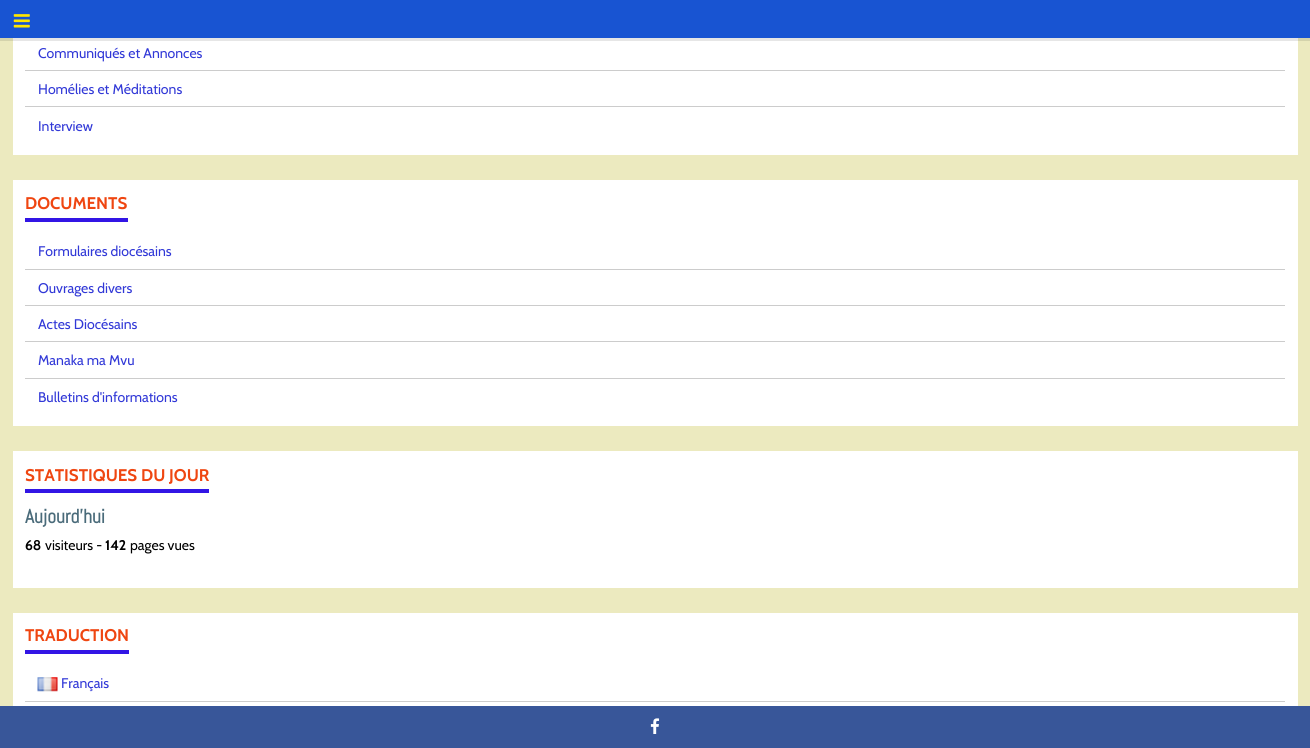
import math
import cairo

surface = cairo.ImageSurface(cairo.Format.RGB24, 1310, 748)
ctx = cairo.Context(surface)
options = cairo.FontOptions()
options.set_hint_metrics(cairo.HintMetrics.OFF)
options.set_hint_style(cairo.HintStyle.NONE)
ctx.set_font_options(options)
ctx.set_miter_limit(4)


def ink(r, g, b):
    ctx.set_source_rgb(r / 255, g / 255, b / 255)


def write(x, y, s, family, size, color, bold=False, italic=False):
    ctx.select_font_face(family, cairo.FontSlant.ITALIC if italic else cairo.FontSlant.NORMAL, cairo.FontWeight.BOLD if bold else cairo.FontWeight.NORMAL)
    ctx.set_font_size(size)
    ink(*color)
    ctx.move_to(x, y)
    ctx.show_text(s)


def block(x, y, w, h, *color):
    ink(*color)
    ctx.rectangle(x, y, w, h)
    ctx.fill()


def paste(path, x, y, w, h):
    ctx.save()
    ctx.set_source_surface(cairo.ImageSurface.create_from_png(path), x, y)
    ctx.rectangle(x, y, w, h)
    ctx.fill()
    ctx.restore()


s1 = dict(family="Cabin", size=14, color=(49, 56, 215))
s2 = dict(family="Cabin", size=16.9, color=(239, 70, 17), bold=True)
s3 = dict(family="Abel", size=19.5, color=(74, 107, 122), bold=True)
s4 = dict(family="Cabin", size=14, color=(0, 0, 0), bold=True)
s5 = dict(family="Cabin", size=14, color=(0, 0, 0))

ink(236, 234, 191)
ctx.paint()
block(0, 0, 1310, 38, 24, 84, 210)
paste("pic1.png", 13, 14, 17, 14)
block(0, 38, 1310, 3, 212, 211, 172)
block(13, 41, 1285, 114, 255, 255, 255)
block(13, 38, 1285, 3, 230, 230, 230)
block(25, 70, 1260, 1, 204, 204, 204)
write(38, 58, "Communiqués et Annonces", **s1)
block(25, 106, 1260, 1, 204, 204, 204)
write(38, 94, "Homélies et Méditations", **s1)
write(38, 131, "Interview", **s1)
block(13, 180, 1285, 246, 255, 255, 255)
block(25, 218, 103, 4, 50, 21, 229)
write(25, 209, "DOCUMENTS", **s2)
block(25, 269, 1260, 1, 204, 204, 204)
write(38, 256, "Formulaires diocésains", **s1)
block(25, 305, 1260, 1, 204, 204, 204)
write(38, 293, "Ouvrages divers", **s1)
block(25, 341, 1260, 1, 204, 204, 204)
write(38, 329, "Actes Diocésains", **s1)
block(25, 378, 1260, 1, 204, 204, 204)
write(38, 365, "Manaka ma Mvu", **s1)
write(38, 402, "Bulletins d'informations", **s1)
block(13, 451, 1285, 137, 255, 255, 255)
block(25, 489, 184, 4, 50, 21, 229)
write(25, 481, "STATISTIQUES DU JOUR", **s2)
write(25, 523, "Aujourd'hui", **s3)
write(25, 550, "68", **s4)
write(45, 550, "visiteurs -", **s5)
write(105, 550, "142", **s4)
write(130, 550, "pages vues", **s5)
block(13, 613, 1285, 93, 255, 255, 255)
block(25, 650, 104, 4, 50, 21, 229)
write(25, 641, "TRADUCTION", **s2)
block(25, 701, 1260, 1, 204, 204, 204)
paste("pic2.png", 37, 677, 21, 15)
write(61, 688, "Français", **s1)
block(0, 706, 1310, 42, 56, 86, 153)
paste("pic3.png", 650, 718, 10, 16)
surface.write_to_png("screenshot.png")
